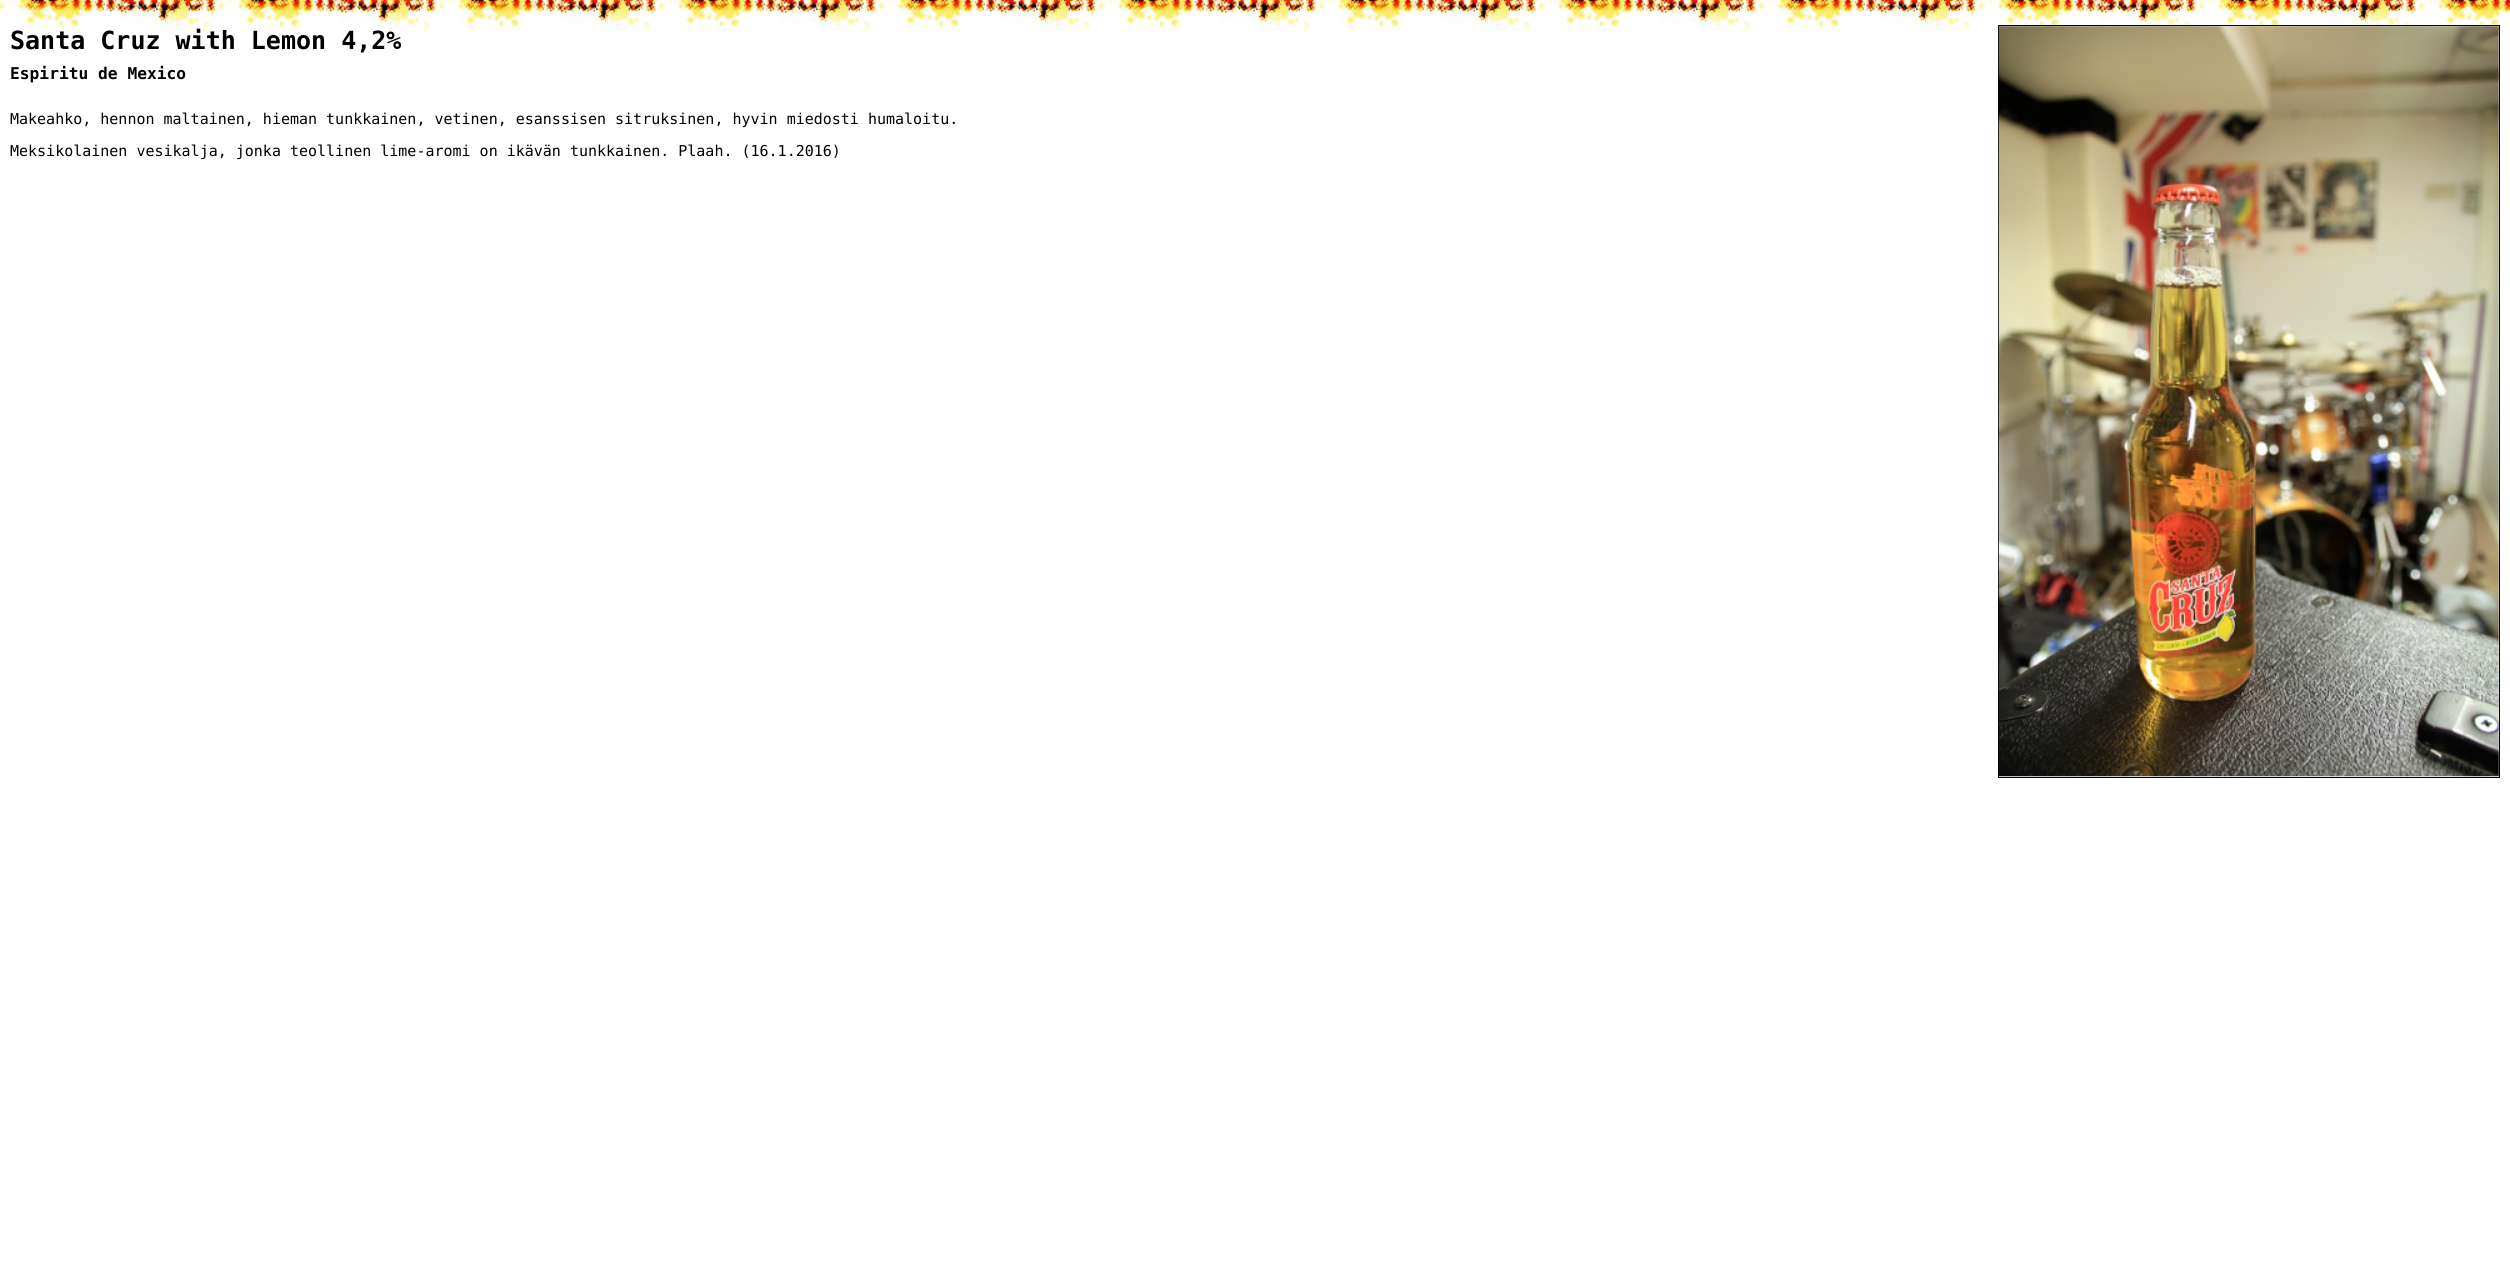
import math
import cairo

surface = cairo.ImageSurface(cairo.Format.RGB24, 2510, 1285)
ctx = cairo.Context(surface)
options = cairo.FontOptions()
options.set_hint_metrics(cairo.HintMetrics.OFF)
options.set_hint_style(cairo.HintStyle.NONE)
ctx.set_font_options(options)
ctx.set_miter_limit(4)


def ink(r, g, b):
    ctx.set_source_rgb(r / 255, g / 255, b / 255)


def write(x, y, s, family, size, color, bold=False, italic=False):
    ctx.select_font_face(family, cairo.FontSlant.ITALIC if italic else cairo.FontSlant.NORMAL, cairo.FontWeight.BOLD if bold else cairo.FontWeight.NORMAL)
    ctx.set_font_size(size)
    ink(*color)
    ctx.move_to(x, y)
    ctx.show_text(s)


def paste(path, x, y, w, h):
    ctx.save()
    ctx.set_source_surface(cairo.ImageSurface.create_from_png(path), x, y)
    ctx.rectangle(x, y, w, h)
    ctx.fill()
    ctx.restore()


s1 = dict(family="DejaVu Sans Mono", size=25, color=(0, 0, 0), bold=True)
s2 = dict(family="DejaVu Sans Mono", size=16.25, color=(0, 0, 0), bold=True)
s3 = dict(family="DejaVu Sans Mono", size=15, color=(0, 0, 0))

ink(255, 255, 255)
ctx.paint()
paste("pic1.png", 0, 0, 2510, 32)
write(10, 49, "Santa Cruz with Lemon 4,2%", **s1)
write(10, 79, "Espiritu de Mexico", **s2)
ctx.rectangle(1998.5, 25.5, 501, 752)
ctx.set_line_width(1)
ctx.stroke()
paste("pic2.png", 1998, 26, 501, 751)
write(10, 124, "Makeahko, hennon maltainen, hieman tunkkainen, vetinen, esanssisen sitruksinen, hyvin miedosti humaloitu.", **s3)
write(10, 156, "Meksikolainen vesikalja, jonka teollinen lime-aromi on ikävän tunkkainen. Plaah. (16.1.2016)", **s3)
surface.write_to_png("screenshot.png")
